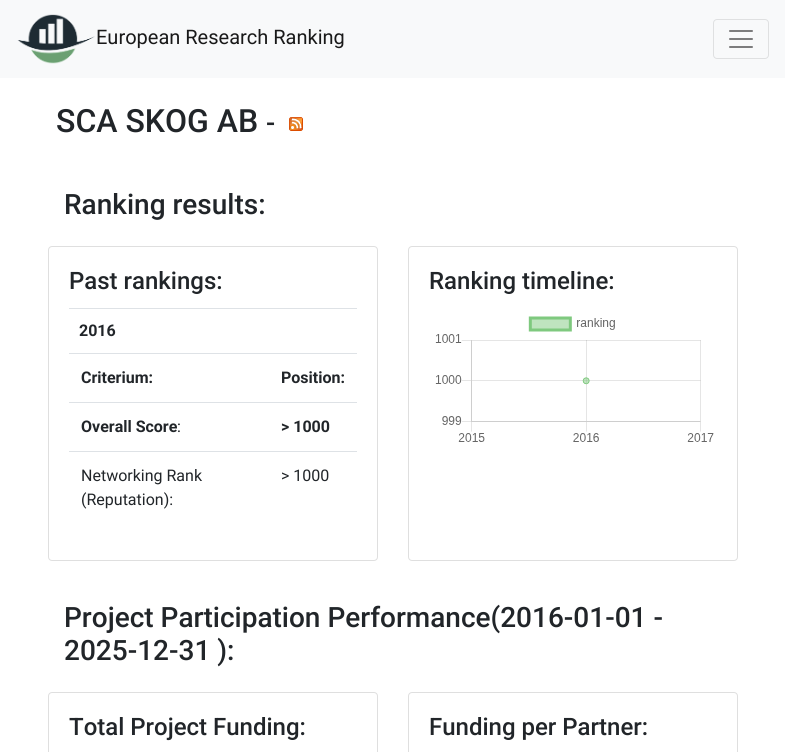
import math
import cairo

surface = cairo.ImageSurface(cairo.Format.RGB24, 785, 752)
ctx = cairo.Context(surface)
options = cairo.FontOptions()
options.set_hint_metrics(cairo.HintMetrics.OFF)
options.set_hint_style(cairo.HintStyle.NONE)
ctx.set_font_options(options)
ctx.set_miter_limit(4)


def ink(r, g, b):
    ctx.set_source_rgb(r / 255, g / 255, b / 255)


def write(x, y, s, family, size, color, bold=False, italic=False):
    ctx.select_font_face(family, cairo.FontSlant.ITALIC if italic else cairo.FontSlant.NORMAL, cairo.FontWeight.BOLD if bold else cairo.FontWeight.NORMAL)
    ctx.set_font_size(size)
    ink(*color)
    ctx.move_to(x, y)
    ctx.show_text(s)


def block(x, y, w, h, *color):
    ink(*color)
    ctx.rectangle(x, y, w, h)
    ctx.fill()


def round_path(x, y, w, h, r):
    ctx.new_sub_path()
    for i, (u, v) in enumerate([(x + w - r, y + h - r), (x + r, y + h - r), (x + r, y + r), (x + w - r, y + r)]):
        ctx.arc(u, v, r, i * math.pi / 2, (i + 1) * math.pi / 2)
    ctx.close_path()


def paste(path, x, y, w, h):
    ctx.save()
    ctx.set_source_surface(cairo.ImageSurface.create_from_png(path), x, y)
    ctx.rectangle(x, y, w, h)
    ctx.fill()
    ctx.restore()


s1 = dict(family="Roboto", size=20, color=(25, 25, 25))
s2 = dict(family="Roboto Medium", size=32, color=(33, 37, 41))
s3 = dict(family="Roboto Medium", size=27, color=(33, 37, 41))
s4 = dict(family="Roboto Medium", size=28, color=(33, 37, 41))
s5 = dict(family="Roboto Medium", size=24, color=(33, 37, 41))
s6 = dict(family="Roboto", size=16, color=(33, 37, 41), bold=True)
s7 = dict(family="Roboto", size=16, color=(33, 37, 41))

ink(255, 255, 255)
ctx.paint()
block(0, 0, 785, 78, 248, 249, 250)
paste("pic1.png", 17, 14, 78, 50)
write(96, 44, "European Research Ranking", **s1)
round_path(713.5, 19.5, 55, 39, 3.5)
ink(223, 224, 225)
ctx.set_line_width(1)
ctx.stroke()
paste("pic2.png", 729, 30, 24, 18)
write(56, 132, "SCA SKOG AB", **s2)
write(266, 132, "-", **s3)
paste("pic3.png", 289, 117, 14, 14)
write(64, 214, "Ranking results:", **s4)
round_path(48.5, 246.5, 329, 314, 3.5)
ink(223, 223, 223)
ctx.stroke()
write(69, 289, "Past rankings:", **s5)
block(69, 308, 288, 1, 222, 226, 230)
write(79, 336, "2016", **s6)
write(81, 383, "Criterium:", **s6)
block(69, 353, 288, 1, 222, 226, 230)
write(281, 383, "Position:", **s6)
write(81, 432, "Overall Score", **s6)
write(177, 432, ":", **s7)
block(69, 402, 288, 1, 222, 226, 230)
write(281, 432, "> 1000", **s6)
write(81, 481, "Networking Rank", **s7)
write(81, 505, "(Reputation):", **s7)
block(69, 451, 288, 1, 222, 226, 230)
write(281, 481, "> 1000", **s7)
round_path(408.5, 246.5, 329, 314, 3.5)
ink(223, 223, 223)
ctx.stroke()
write(429, 289, "Ranking timeline:", **s5)
paste("pic4.png", 435, 316, 279, 126)
write(64, 627, "Project Participation Performance(2016-01-01 -", **s4)
write(64, 660, "2025-12-31 ):", **s4)
round_path(48.5, 692.5, 329, 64, 3.5)
ink(223, 223, 223)
ctx.stroke()
write(69, 735, "Total Project Funding:", **s5)
round_path(408.5, 692.5, 329, 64, 3.5)
ink(223, 223, 223)
ctx.stroke()
write(429, 735, "Funding per Partner:", **s5)
surface.write_to_png("screenshot.png")
